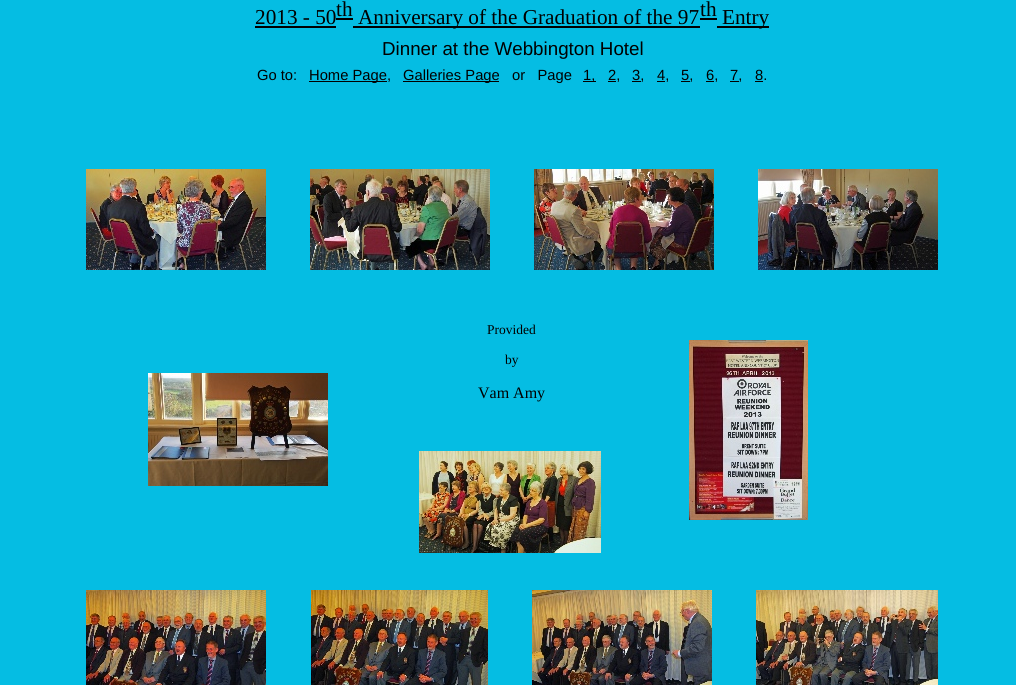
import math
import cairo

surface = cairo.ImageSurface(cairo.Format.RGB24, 1016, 685)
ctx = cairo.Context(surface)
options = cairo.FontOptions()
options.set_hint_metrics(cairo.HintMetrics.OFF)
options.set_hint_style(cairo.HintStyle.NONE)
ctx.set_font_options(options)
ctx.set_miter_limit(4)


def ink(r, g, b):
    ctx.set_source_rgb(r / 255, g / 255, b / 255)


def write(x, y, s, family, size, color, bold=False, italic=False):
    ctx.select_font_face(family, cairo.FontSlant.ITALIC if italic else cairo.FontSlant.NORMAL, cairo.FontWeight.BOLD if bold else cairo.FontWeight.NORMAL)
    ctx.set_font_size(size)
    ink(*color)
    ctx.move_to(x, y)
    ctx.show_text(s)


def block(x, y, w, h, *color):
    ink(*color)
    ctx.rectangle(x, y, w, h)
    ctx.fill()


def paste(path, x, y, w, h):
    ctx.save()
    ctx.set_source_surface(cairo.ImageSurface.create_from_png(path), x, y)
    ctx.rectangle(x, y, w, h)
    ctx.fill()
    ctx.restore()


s1 = dict(family="Liberation Serif", size=21.25, color=(0, 0, 0))
s2 = dict(family="Liberation Sans", size=18.75, color=(0, 0, 0))
s3 = dict(family="Liberation Sans", size=14.75, color=(0, 0, 0))
s4 = dict(family="Liberation Serif", size=13.5, color=(0, 0, 0))
s5 = dict(family="Liberation Serif", size=16, color=(0, 0, 0))

ink(5, 189, 227)
ctx.paint()
write(255, 24, "2013 - 50", **s1)
block(255, 26, 81, 2, 0, 0, 0)
block(336, 18, 17, 2, 0, 0, 0)
write(336, 16, "th", **s1)
block(353, 26, 347, 2, 0, 0, 0)
write(358, 24, "Anniversary of the Graduation of the 97", **s1)
block(700, 18, 17, 2, 0, 0, 0)
write(700, 16, "th", **s1)
block(717, 26, 52, 2, 0, 0, 0)
write(722, 24, "Entry", **s1)
write(382, 55, "Dinner at the Webbington Hotel", **s2)
write(257, 80, "Go to:", **s3)
block(309, 81, 78, 1, 0, 0, 0)
write(309, 80, "Home Page,", **s3)
block(403, 81, 96, 1, 0, 0, 0)
write(403, 80, "Galleries Page", **s3)
write(512, 80, "or   Page", **s3)
block(583, 81, 13, 1, 0, 0, 0)
write(583, 80, "1,", **s3)
block(608, 81, 8, 1, 0, 0, 0)
write(608, 80, "2,", **s3)
block(632, 81, 9, 1, 0, 0, 0)
write(632, 80, "3,", **s3)
block(657, 81, 8, 1, 0, 0, 0)
write(657, 80, "4,", **s3)
block(681, 81, 9, 1, 0, 0, 0)
write(681, 80, "5,", **s3)
block(706, 81, 8, 1, 0, 0, 0)
write(706, 80, "6,", **s3)
block(730, 81, 9, 1, 0, 0, 0)
write(730, 80, "7,", **s3)
write(755, 80, "8.", **s3)
block(755, 81, 8, 1, 0, 0, 0)
paste("pic1.png", 86, 169, 180, 101)
paste("pic2.png", 310, 169, 180, 101)
paste("pic3.png", 534, 169, 180, 101)
paste("pic4.png", 758, 169, 180, 101)
paste("pic5.png", 148, 373, 180, 113)
write(487, 334, "Provided", **s4)
write(505, 364, "by", **s4)
write(478, 398, "Vam Amy", **s5)
paste("pic6.png", 689, 340, 119, 180)
paste("pic7.png", 419, 451, 182, 102)
paste("pic8.png", 86, 590, 180, 95)
paste("pic9.png", 311, 590, 177, 95)
paste("pic10.png", 532, 590, 180, 95)
paste("pic11.png", 756, 590, 182, 95)
surface.write_to_png("screenshot.png")
